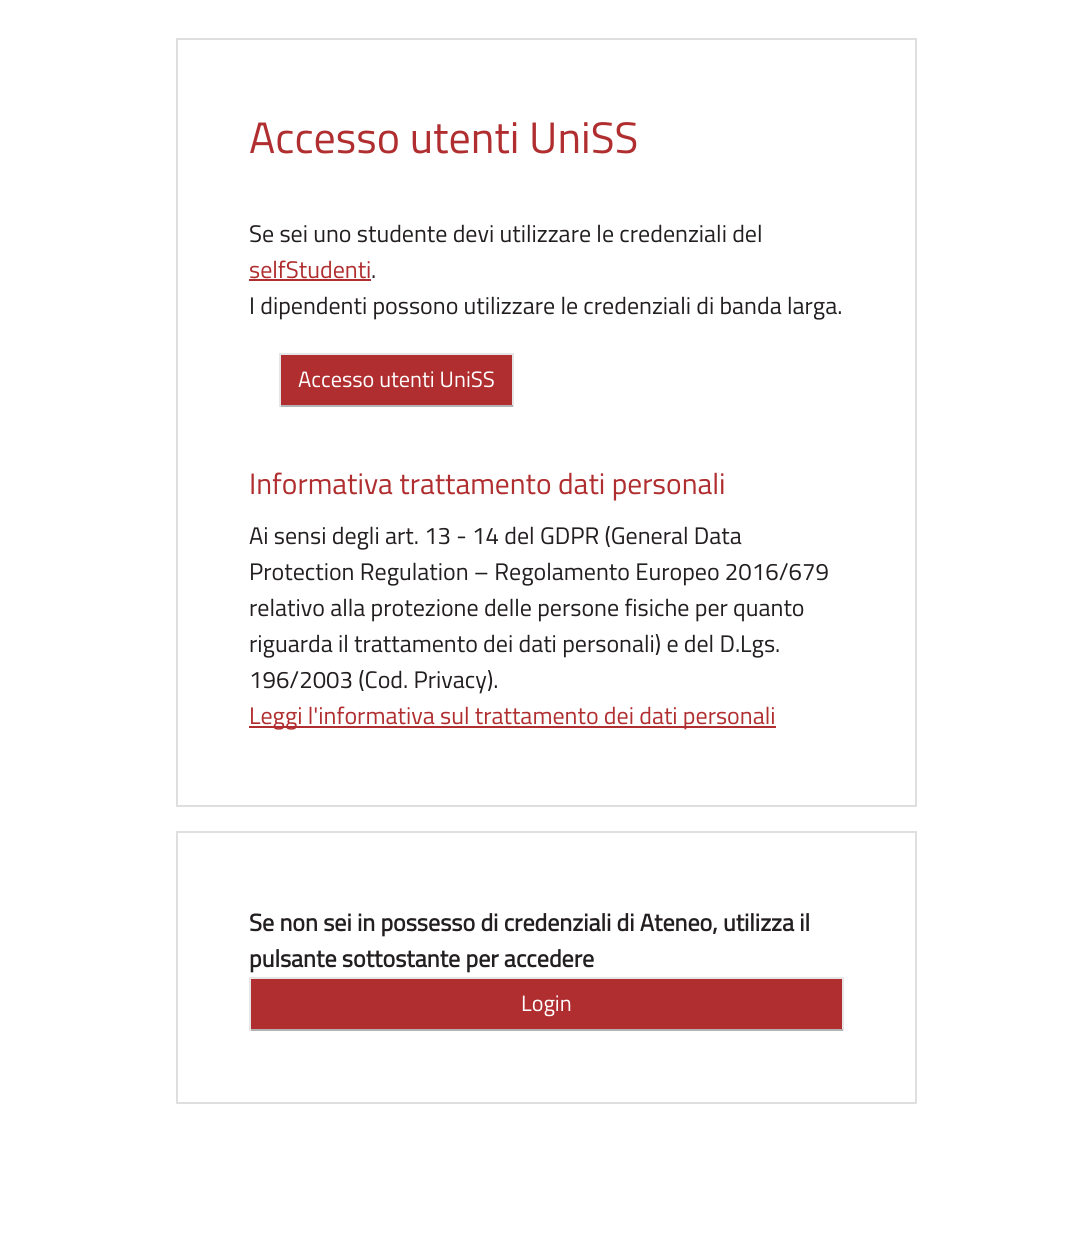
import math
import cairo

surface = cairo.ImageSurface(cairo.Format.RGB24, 1092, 1243)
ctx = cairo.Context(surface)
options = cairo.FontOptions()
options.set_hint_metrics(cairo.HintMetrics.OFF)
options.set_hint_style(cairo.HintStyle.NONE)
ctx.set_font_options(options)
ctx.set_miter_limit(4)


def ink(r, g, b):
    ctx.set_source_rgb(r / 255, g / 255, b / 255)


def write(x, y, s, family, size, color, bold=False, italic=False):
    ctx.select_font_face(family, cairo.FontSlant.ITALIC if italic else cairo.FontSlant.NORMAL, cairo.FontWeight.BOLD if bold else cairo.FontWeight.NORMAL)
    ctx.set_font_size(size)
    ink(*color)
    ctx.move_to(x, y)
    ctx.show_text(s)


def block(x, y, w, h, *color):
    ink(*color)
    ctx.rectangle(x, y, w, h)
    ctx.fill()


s1 = dict(family="Titillium Web", size=44, color=(176, 46, 47))
s2 = dict(family="Titillium Web", size=24, color=(35, 31, 32))
s3 = dict(family="Titillium Web", size=24, color=(176, 46, 47))
s4 = dict(family="Titillium Web", size=22.25, color=(255, 255, 255))
s5 = dict(family="Titillium Web", size=29.5, color=(176, 46, 47))
s6 = dict(family="Titillium Web", size=24, color=(35, 31, 32), bold=True)

ink(255, 255, 255)
ctx.paint()
ctx.rectangle(177, 39, 739, 767)
ink(223, 223, 223)
ctx.stroke()
write(249, 153, "Accesso utenti UniSS", **s1)
write(249, 242, "Se sei uno studente devi utilizzare le credenziali del", **s2)
write(249, 278, "selfStudenti", **s3)
block(249, 279, 122, 2, 176, 46, 47)
write(371, 278, ".", **s2)
write(249, 314, "I dipendenti possono utilizzare le credenziali di banda larga.", **s2)
block(281, 355, 231, 50, 176, 46, 47)
block(279, 353, 234, 2, 230, 230, 230)
block(512, 353, 2, 54, 230, 230, 230)
block(279, 405, 234, 2, 179, 179, 179)
block(279, 353, 2, 54, 230, 230, 230)
write(298, 387, "Accesso utenti UniSS", **s4)
write(249, 494, "Informativa trattamento dati personali", **s5)
write(249, 544, "Ai sensi degli art. 13 - 14 del GDPR (General Data", **s2)
write(249, 580, "Protection Regulation – Regolamento Europeo 2016/679", **s2)
write(249, 616, "relativo alla protezione delle persone fisiche per quanto", **s2)
write(249, 652, "riguarda il trattamento dei dati personali) e del D.Lgs.", **s2)
write(249, 688, "196/2003 (Cod. Privacy).", **s2)
block(249, 726, 527, 2, 176, 46, 47)
write(249, 724, "Leggi l'informativa sul trattamento dei dati personali", **s3)
ctx.rectangle(177, 832, 739, 271)
ink(223, 223, 223)
ctx.stroke()
write(249, 931, "Se non sei in possesso di credenziali di Ateneo, utilizza il", **s6)
write(249, 967, "pulsante sottostante per accedere", **s6)
block(251, 979, 591, 50, 176, 46, 47)
block(249, 977, 594, 2, 230, 230, 230)
block(842, 977, 2, 54, 230, 230, 230)
block(249, 1029, 594, 2, 179, 179, 179)
block(249, 977, 2, 54, 230, 230, 230)
write(521, 1011, "Login", **s4)
surface.write_to_png("screenshot.png")
